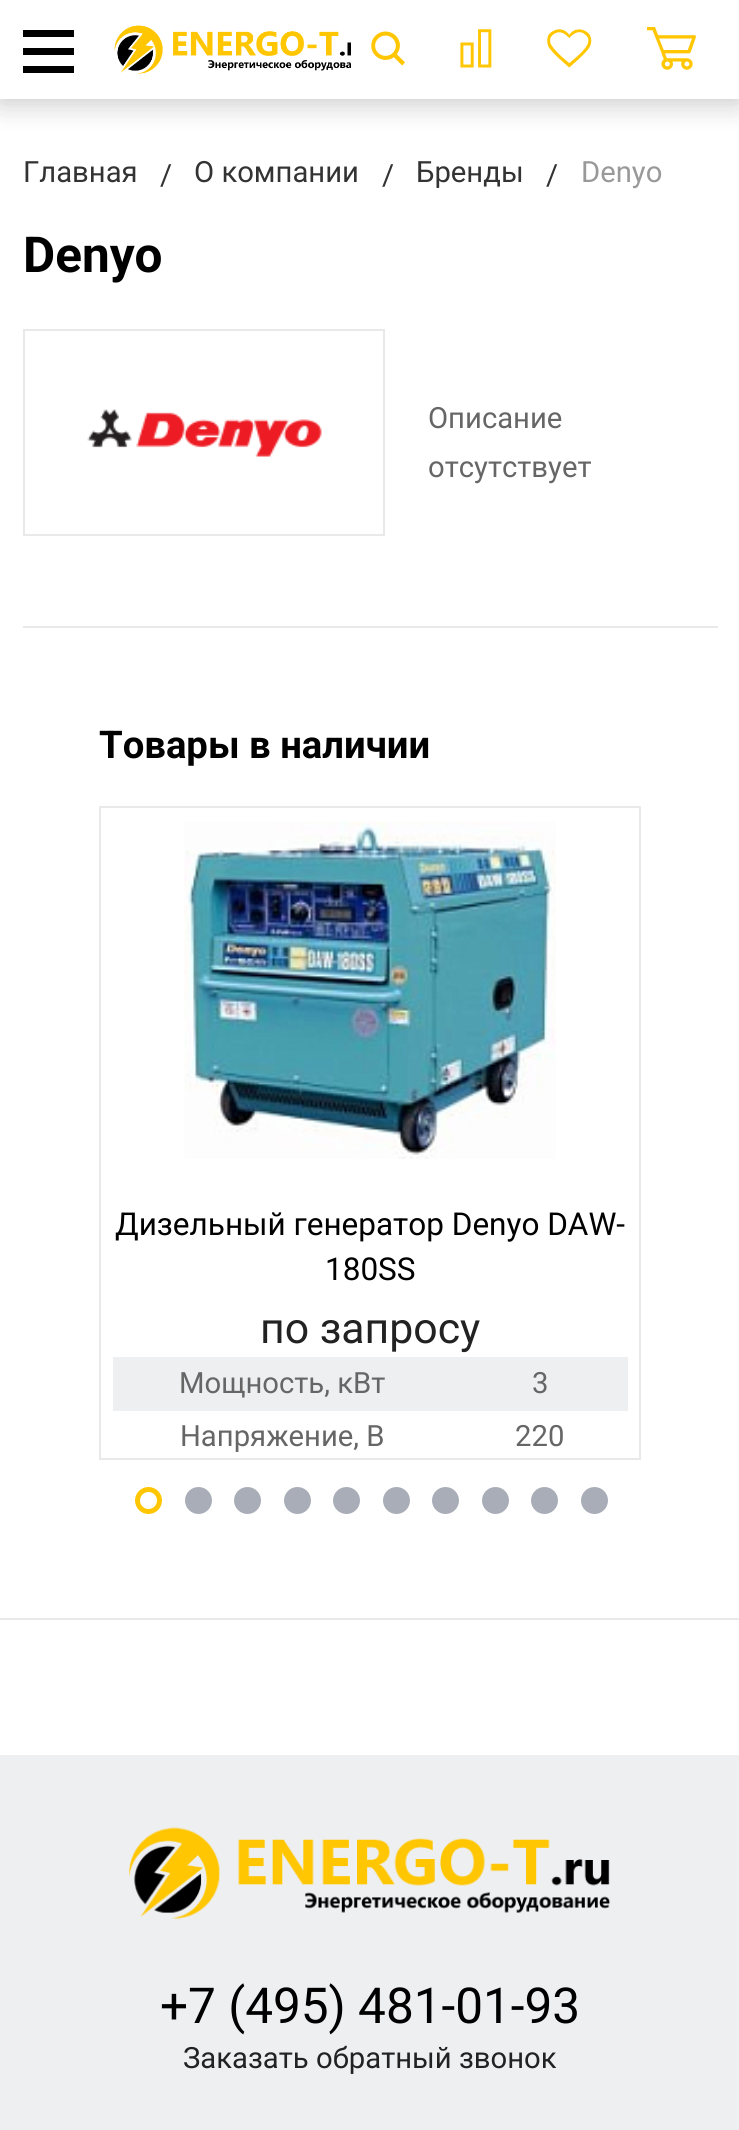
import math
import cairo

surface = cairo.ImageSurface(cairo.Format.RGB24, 739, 2130)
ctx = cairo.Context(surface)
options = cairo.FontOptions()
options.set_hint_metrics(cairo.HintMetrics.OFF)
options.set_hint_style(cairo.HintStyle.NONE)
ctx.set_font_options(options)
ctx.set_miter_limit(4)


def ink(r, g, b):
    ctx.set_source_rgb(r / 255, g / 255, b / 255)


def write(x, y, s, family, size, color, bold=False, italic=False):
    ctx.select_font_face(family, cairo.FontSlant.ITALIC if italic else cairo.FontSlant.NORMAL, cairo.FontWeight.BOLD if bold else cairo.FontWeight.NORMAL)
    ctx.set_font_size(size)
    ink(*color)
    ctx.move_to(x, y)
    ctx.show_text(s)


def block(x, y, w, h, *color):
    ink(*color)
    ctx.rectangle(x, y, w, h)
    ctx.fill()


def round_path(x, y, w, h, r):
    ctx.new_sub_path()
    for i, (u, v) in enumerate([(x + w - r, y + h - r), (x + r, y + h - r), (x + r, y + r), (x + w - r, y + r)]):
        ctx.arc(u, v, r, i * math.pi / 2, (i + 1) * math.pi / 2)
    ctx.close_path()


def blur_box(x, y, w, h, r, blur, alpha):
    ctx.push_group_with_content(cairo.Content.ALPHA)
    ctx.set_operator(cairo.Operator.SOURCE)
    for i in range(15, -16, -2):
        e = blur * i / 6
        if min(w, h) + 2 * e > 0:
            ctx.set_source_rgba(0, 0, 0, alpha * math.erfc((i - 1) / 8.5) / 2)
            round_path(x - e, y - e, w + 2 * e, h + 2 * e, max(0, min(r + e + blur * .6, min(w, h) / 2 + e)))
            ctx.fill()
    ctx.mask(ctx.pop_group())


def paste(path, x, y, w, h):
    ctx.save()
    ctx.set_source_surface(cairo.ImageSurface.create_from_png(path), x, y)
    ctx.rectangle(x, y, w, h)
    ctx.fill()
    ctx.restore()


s1 = dict(family="Roboto", size=29.25, color=(51, 51, 51))
s2 = dict(family="Roboto", size=29.25, color=(153, 153, 153))
s3 = dict(family="Roboto", size=49.5, color=(0, 0, 0), bold=True)
s4 = dict(family="Roboto", size=29.25, color=(102, 102, 102))
s5 = dict(family="Roboto", size=38.25, color=(0, 0, 0), bold=True)
s6 = dict(family="Roboto", size=31.5, color=(0, 0, 0))
s7 = dict(family="Roboto", size=42.75, color=(34, 34, 34))
s8 = dict(family="Roboto", size=49.5, color=(0, 0, 0))
s9 = dict(family="Roboto", size=29.25, color=(34, 34, 34))

ink(255, 255, 255)
ctx.paint()
ink(5, 5, 5)
blur_box(0, 0, 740, 97, 0, 17, 0.15)
blur_box(0, 0, 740, 99, 0, 17, 0.15)
block(0, 0, 739, 99, 255, 255, 255)
ctx.save()
ctx.rectangle(23, 29, 51, 45)
ctx.clip()
ink(0, 0, 0)
ctx.set_fill_rule(cairo.FillRule.EVEN_ODD)
ctx.new_path()
ctx.move_to(22, 73)
ctx.line_to(22, 66)
ctx.line_to(74, 66)
ctx.line_to(74, 73)
ctx.close_path()
ctx.move_to(22, 48)
ctx.line_to(74, 48)
ctx.line_to(74, 55)
ctx.line_to(22, 55)
ctx.close_path()
ctx.move_to(22, 30)
ctx.line_to(74, 30)
ctx.line_to(74, 37)
ctx.line_to(22, 37)
ctx.close_path()
ctx.fill()
ctx.restore()
paste("pic1.png", 114, 25, 237, 49)
paste("pic2.png", 371, 31, 34, 35)
paste("pic3.png", 460, 29, 32, 39)
paste("pic4.png", 547, 29, 45, 39)
paste("pic5.png", 646, 27, 50, 43)
write(23, 182, "Главная", **s1)
write(160, 185, "/", **s1)
write(194, 182, "О компании", **s1)
write(382, 185, "/", **s1)
write(416, 182, "Бренды", **s1)
write(546, 185, "/", **s1)
write(581, 182, "Denyo", **s2)
write(23, 272, "Denyo", **s3)
block(23, 626, 695, 2, 233, 233, 233)
ctx.rectangle(24, 330, 360, 205)
ctx.stroke()
paste("pic6.png", 87, 409, 235, 48)
write(428, 428, "Описание", **s4)
write(428, 477, "отсутствует", **s4)
write(99, 758, "Товары в наличии", **s5)
ctx.rectangle(100, 807, 540, 652)
ink(233, 233, 233)
ctx.stroke()
paste("pic7.png", 184, 821, 372, 338)
write(115, 1235, "Дизельный генератор Denyo DAW-", **s6)
write(325, 1280, "180SS", **s6)
write(260, 1343, "по запросу", **s7)
block(113, 1357, 515, 54, 238, 239, 241)
write(179, 1393, "Мощность, кВт", **s4)
write(532, 1393, "3", **s4)
write(180, 1446, "Напряжение, В", **s4)
write(515, 1446, "220", **s4)
ctx.new_path()
ctx.arc(148.5, 1500.5, 11, 0, 2 * math.pi)
ink(255, 198, 1)
ctx.set_line_width(5)
ctx.stroke()
ink(168, 173, 183)
ctx.arc(198.5, 1500.5, 13.5, 0, 2 * math.pi)
ctx.fill()
ctx.arc(247.5, 1500.5, 13.5, 0, 2 * math.pi)
ctx.fill()
ctx.arc(297.5, 1500.5, 13.5, 0, 2 * math.pi)
ctx.fill()
ctx.arc(346.5, 1500.5, 13.5, 0, 2 * math.pi)
ctx.fill()
ctx.arc(396.5, 1500.5, 13.5, 0, 2 * math.pi)
ctx.fill()
ctx.arc(445.5, 1500.5, 13.5, 0, 2 * math.pi)
ctx.fill()
ctx.arc(495.5, 1500.5, 13.5, 0, 2 * math.pi)
ctx.fill()
ctx.arc(544.5, 1500.5, 13.5, 0, 2 * math.pi)
ctx.fill()
ctx.arc(594.5, 1500.5, 13.5, 0, 2 * math.pi)
ctx.fill()
block(0, 1618, 739, 2, 233, 233, 233)
block(0, 1755, 739, 375, 238, 239, 241)
paste("pic8.png", 129, 1827, 482, 92)
write(160, 2023, "+7 (495) 481-01-93", **s8)
write(183, 2068, "Заказать обратный звонок", **s9)
surface.write_to_png("screenshot.png")
